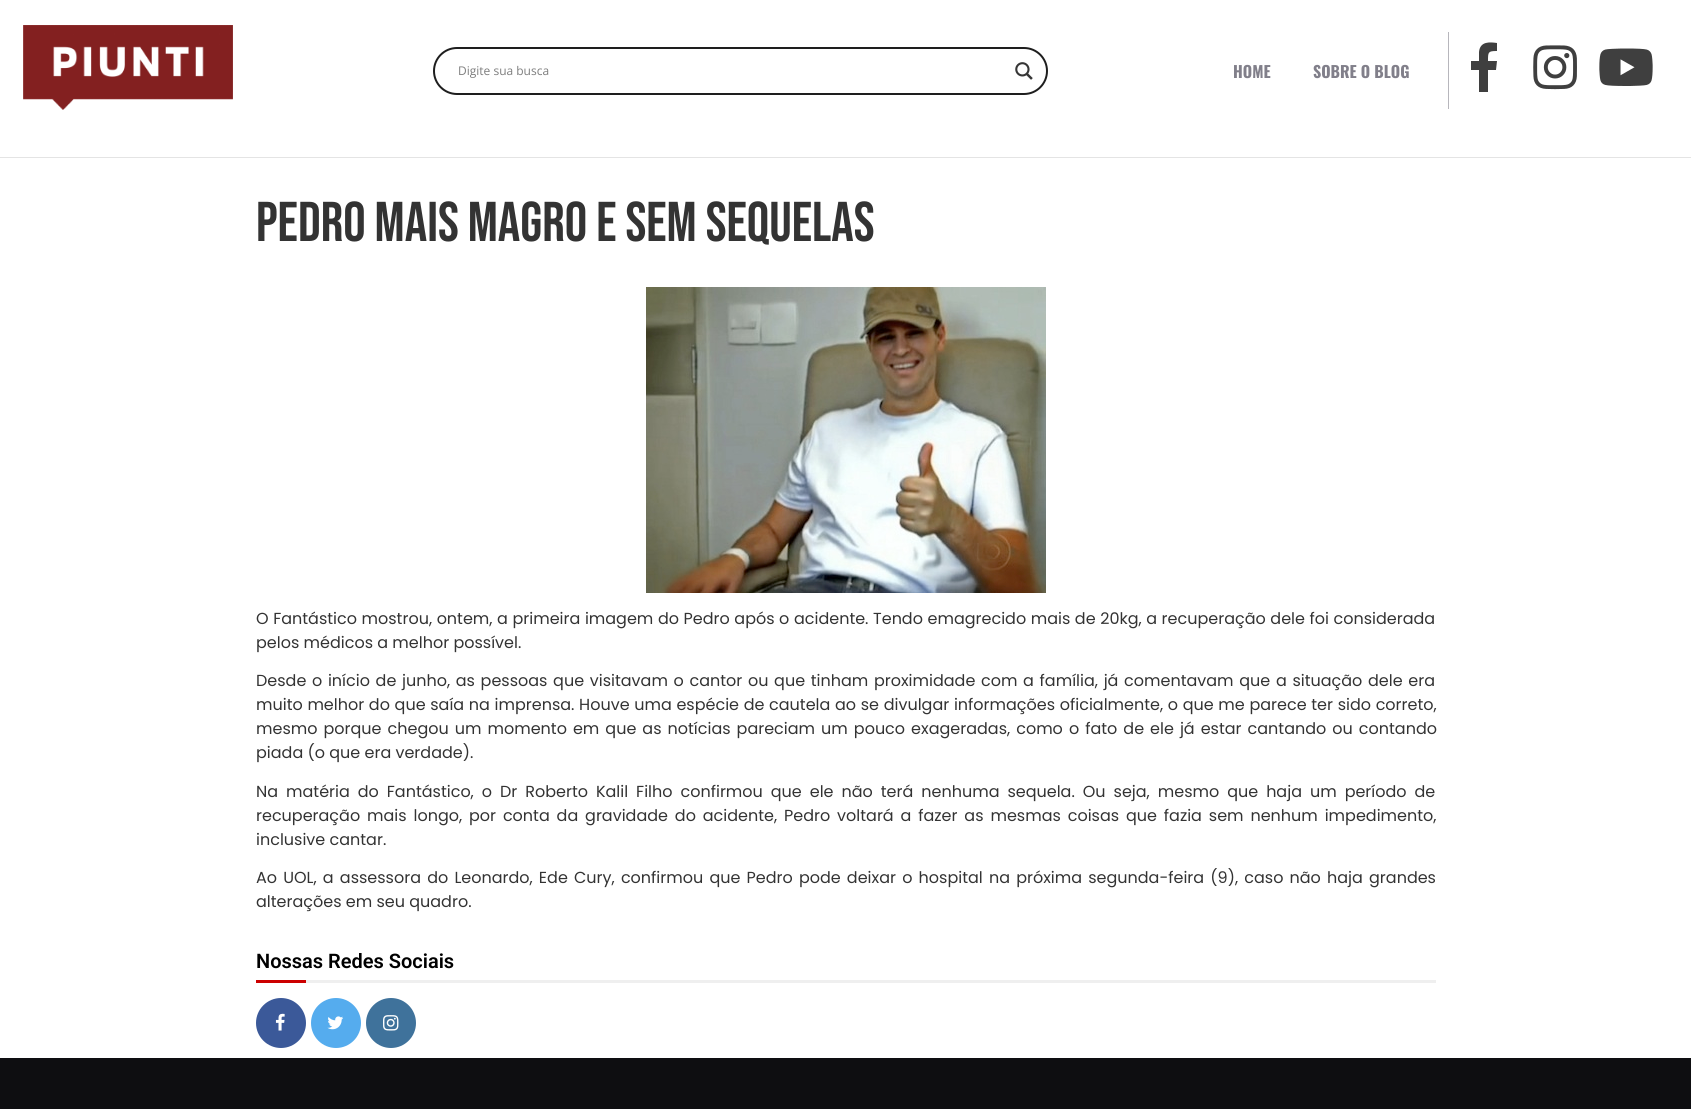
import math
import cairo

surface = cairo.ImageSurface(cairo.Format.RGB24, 1691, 1109)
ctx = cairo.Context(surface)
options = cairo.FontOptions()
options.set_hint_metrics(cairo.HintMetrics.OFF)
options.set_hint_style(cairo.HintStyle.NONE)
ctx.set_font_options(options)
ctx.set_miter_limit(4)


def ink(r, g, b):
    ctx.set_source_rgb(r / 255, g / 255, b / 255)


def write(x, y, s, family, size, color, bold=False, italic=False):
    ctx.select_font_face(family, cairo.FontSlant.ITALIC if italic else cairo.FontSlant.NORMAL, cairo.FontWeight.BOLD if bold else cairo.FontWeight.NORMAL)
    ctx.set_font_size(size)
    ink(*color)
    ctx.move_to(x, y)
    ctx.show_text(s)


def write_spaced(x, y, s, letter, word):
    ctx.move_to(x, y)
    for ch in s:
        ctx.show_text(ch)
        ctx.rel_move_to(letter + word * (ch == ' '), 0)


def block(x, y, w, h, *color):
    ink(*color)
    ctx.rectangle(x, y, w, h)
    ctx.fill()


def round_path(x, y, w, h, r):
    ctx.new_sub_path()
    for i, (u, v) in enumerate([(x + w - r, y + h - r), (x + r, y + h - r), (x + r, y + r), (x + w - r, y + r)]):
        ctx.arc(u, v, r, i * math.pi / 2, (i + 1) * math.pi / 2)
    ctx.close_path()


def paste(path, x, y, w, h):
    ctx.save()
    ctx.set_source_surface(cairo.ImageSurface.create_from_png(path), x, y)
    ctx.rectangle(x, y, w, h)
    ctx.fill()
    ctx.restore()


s1 = dict(family="Open Sans", size=12, color=(125, 125, 125))
s2 = dict(family="Oswald", size=16, color=(129, 127, 138), bold=True)
s3 = dict(family="Bebas Neue", size=56, color=(51, 51, 51))
s4 = dict(family="Poppins", size=16, color=(51, 51, 51))
s5 = dict(family="Roboto SemiBold", size=20, color=(0, 0, 0))

ink(255, 255, 255)
ctx.paint()
paste("pic1.png", 23, 25, 210, 85)
round_path(434, 48, 613, 46, 23)
ink(30, 30, 30)
ctx.stroke()
write(458, 75, "Digite sua busca", **s1)
paste("pic2.png", 1015, 62, 18, 18)
write(1233, 78, "HOME", **s2)
write(1313, 78, "SOBRE O BLOG", **s2)
block(1448, 32, 1, 77, 183, 182, 188)
ink(63, 63, 63)
ctx.new_path()
ctx.move_to(1496, 70)
ctx.line_to(1488, 70)
ctx.line_to(1488, 92)
ctx.line_to(1479, 92)
ctx.line_to(1479, 70)
ctx.line_to(1471, 70)
ctx.line_to(1471, 61)
ctx.line_to(1479, 61)
ctx.line_to(1479, 52)
ctx.curve_to(1480, 41, 1490, 42, 1497, 43)
ctx.line_to(1497, 51)
ctx.curve_to(1488, 51, 1488, 52, 1488, 61)
ctx.line_to(1497, 61)
ctx.close_path()
ctx.fill()
paste("pic3.png", 1533, 45, 44, 45)
paste("pic4.png", 1599, 48, 54, 38)
block(0, 157, 1691, 1, 228, 228, 228)
write(256, 241, "Pedro mais magro e sem sequelas", **s3)
paste("pic5.png", 646, 287, 400, 306)
ctx.select_font_face("Poppins")
ctx.set_font_size(16)
write_spaced(256, 624, "O Fantástico mostrou, ontem, a primeira imagem do Pedro após o acidente. Tendo emagrecido mais de 20kg, a recuperação dele foi considerada", 0, 0.3)
write(256, 648, "pelos médicos a melhor possível.", **s4)
write_spaced(256, 686, "Desde o início de junho, as pessoas que visitavam o cantor ou que tinham proximidade com a família, já comentavam que a situação dele era", 0, 1.4)
write_spaced(256, 710, "muito melhor do que saía na imprensa. Houve uma espécie de cautela ao se divulgar informações oficialmente, o que me parece ter sido correto,", 0, 0.4)
write_spaced(256, 734, "mesmo porque chegou um momento em que as notícias pareciam um pouco exageradas, como o fato de ele já estar cantando ou contando", 0, 1.75)
write(256, 758, "piada (o que era verdade).", **s4)
write_spaced(256, 797, "Na matéria do Fantástico, o Dr Roberto Kalil Filho confirmou que ele não terá nenhuma sequela. Ou seja, mesmo que haja um período de", 0, 3.7)
write_spaced(256, 821, "recuperação mais longo, por conta da gravidade do acidente, Pedro voltará a fazer as mesmas coisas que fazia sem nenhum impedimento,", 0, 2.6)
write(256, 845, "inclusive cantar.", **s4)
write_spaced(256, 883, "Ao UOL, a assessora do Leonardo, Ede Cury, confirmou que Pedro pode deixar o hospital na próxima segunda-feira (9), caso não haja grandes", 0, 1.9)
write(256, 907, "alterações em seu quadro.", **s4)
write(256, 968, "Nossas Redes Sociais", **s5)
block(256, 980, 50, 3, 204, 0, 0)
block(306, 980, 1130, 3, 239, 239, 239)
ink(59, 89, 153)
ctx.new_path()
ctx.arc(281, 1023, 25, 0, 2 * math.pi)
ctx.fill()
paste("pic6.png", 275, 1013, 10, 18)
ink(85, 172, 238)
ctx.arc(336, 1023, 25, 0, 2 * math.pi)
ctx.fill()
paste("pic7.png", 327, 1016, 16, 14)
ink(63, 114, 155)
ctx.arc(391, 1023, 25, 0, 2 * math.pi)
ctx.fill()
paste("pic8.png", 383, 1015, 16, 16)
block(0, 1058, 1691, 51, 14, 14, 17)
surface.write_to_png("screenshot.png")
